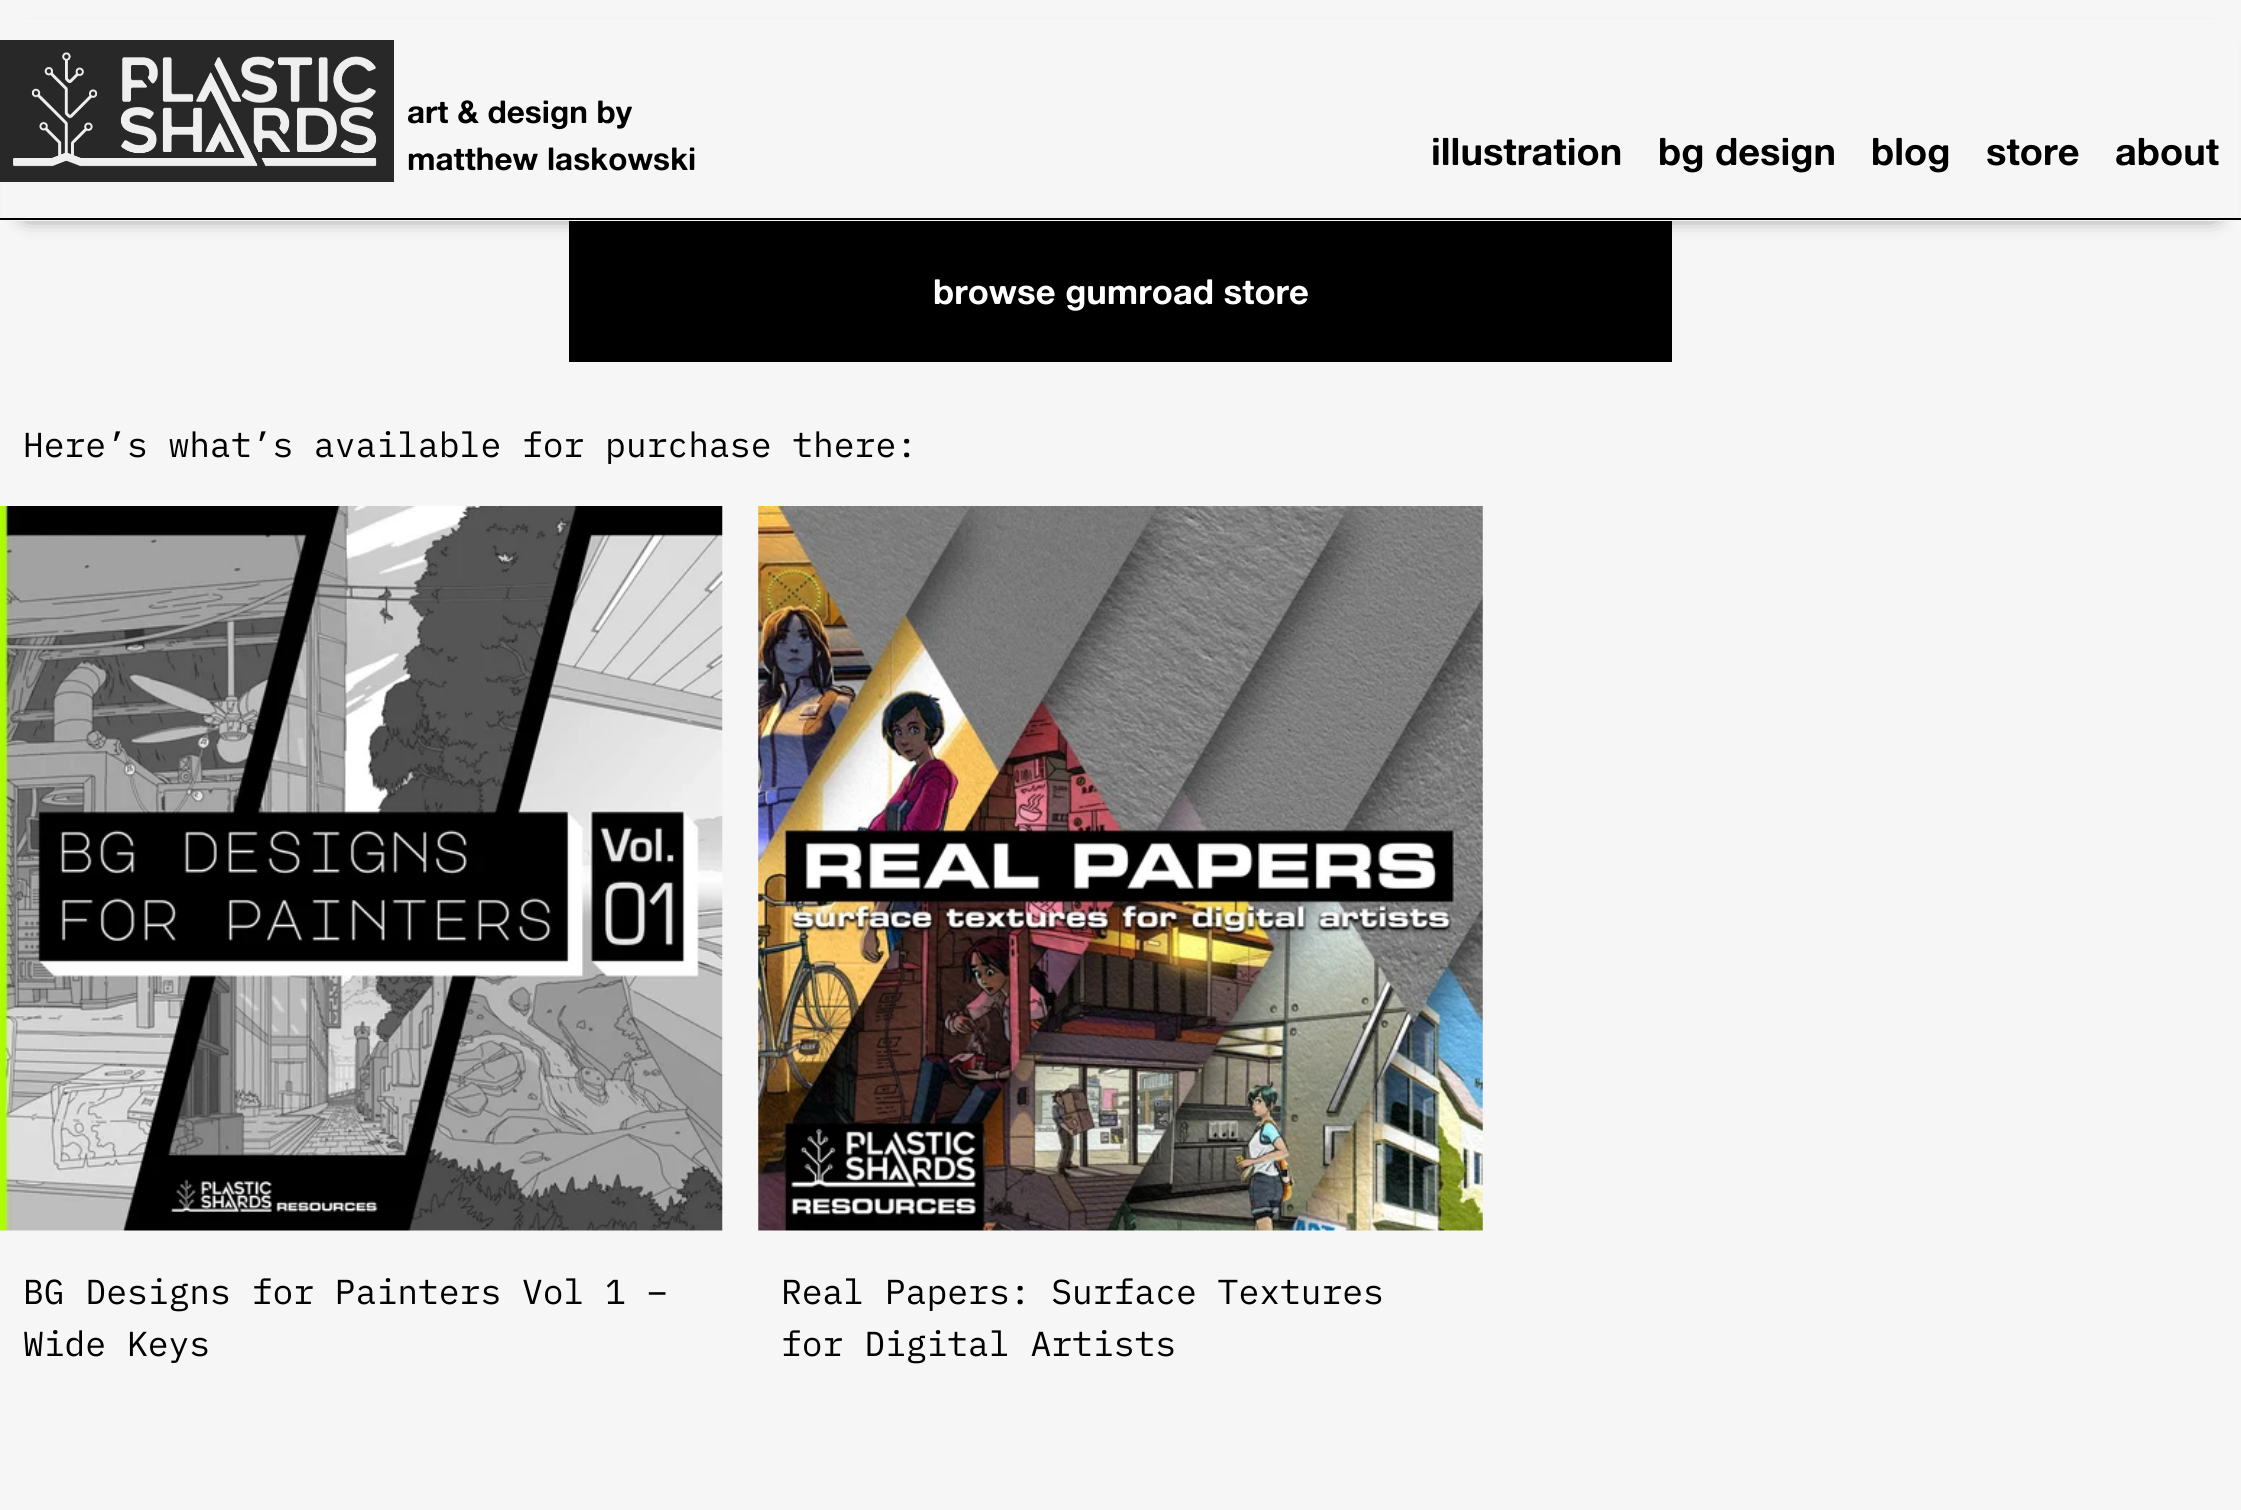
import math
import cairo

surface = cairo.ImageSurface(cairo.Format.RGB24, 2241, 1510)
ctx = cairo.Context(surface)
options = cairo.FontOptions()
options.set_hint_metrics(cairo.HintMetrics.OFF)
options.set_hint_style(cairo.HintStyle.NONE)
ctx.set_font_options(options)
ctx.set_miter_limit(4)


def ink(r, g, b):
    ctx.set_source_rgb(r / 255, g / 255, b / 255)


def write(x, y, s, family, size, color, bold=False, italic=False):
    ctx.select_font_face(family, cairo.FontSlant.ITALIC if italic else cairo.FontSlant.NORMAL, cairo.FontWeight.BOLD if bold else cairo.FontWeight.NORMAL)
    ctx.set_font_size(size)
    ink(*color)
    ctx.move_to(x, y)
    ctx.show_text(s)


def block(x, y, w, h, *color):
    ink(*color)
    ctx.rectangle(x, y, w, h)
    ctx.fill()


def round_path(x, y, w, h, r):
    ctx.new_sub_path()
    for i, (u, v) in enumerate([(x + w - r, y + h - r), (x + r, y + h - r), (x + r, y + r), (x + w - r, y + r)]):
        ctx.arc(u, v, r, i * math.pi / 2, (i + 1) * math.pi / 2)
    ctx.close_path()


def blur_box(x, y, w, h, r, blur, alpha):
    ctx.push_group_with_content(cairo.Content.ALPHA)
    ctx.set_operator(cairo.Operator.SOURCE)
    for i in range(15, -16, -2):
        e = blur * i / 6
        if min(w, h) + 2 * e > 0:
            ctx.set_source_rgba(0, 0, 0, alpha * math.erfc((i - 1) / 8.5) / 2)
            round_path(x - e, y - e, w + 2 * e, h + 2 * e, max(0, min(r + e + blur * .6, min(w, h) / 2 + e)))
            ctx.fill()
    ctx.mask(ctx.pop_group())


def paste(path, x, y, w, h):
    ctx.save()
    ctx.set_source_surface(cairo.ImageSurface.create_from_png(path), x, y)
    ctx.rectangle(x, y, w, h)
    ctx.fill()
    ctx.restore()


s1 = dict(family="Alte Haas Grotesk", size=31.5, color=(0, 0, 0), bold=True)
s2 = dict(family="Alte Haas Grotesk", size=38, color=(0, 0, 0), bold=True)
s3 = dict(family="Alte Haas Grotesk", size=34.65, color=(255, 255, 255), bold=True)
s4 = dict(family="IBM Plex Mono", size=34.65, color=(0, 0, 0))

ink(246, 246, 246)
ctx.paint()
block(569, 221, 1103, 141, 0, 0, 0)
ink(0, 0, 0)
blur_box(27, 45, 2187, 167, 0, 11, 0.9)
block(2, 20, 2237, 201, 246, 246, 246)
block(0, 218, 2241, 2, 0, 0, 0)
paste("pic1.png", 0, 40, 394, 142)
write(407, 123, "art & design by", **s1)
write(407, 170, "matthew laskowski", **s1)
write(1431, 165, "illustration", **s2)
write(1658, 165, "bg design", **s2)
write(1871, 165, "blog", **s2)
write(1986, 165, "store", **s2)
write(2115, 165, "about", **s2)
write(933, 304, "browse gumroad store", **s3)
write(23, 457, "Here’s what’s available for purchase there:", **s4)
paste("pic2.png", 0, 506, 723, 725)
write(23, 1304, "BG Designs for Painters Vol 1 –", **s4)
write(23, 1356, "Wide Keys", **s4)
paste("pic3.png", 758, 506, 725, 725)
write(781, 1304, "Real Papers: Surface Textures", **s4)
write(781, 1356, "for Digital Artists", **s4)
surface.write_to_png("screenshot.png")
